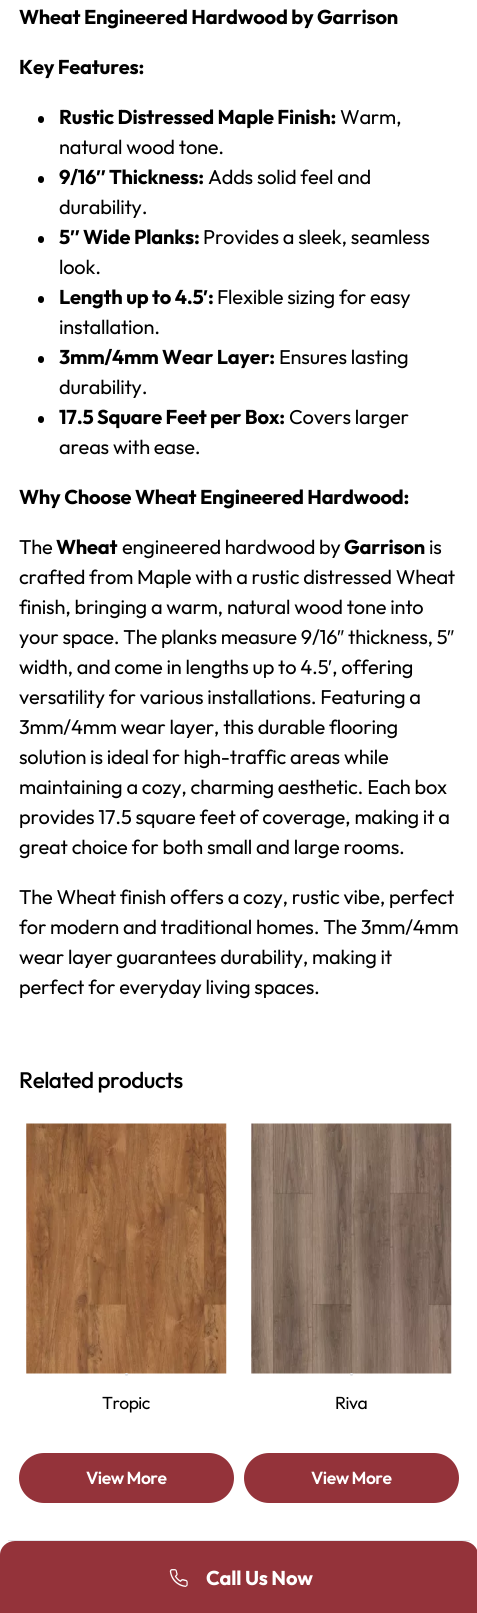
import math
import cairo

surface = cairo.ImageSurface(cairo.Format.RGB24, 477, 1613)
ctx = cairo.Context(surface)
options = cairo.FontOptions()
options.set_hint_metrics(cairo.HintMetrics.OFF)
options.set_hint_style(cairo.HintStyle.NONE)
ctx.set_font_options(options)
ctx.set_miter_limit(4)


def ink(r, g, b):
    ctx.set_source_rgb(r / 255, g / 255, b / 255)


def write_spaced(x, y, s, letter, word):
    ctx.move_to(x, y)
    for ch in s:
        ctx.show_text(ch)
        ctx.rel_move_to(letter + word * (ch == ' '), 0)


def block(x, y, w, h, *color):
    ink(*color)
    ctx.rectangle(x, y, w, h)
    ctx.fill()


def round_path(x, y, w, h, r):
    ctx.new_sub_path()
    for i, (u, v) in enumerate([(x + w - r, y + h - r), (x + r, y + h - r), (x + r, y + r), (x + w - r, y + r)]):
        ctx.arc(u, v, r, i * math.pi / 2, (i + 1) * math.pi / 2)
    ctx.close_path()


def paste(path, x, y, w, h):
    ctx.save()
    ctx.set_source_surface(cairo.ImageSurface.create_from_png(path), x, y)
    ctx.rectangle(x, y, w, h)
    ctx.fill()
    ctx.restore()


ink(255, 255, 255)
ctx.paint()
ctx.select_font_face("Outfit", cairo.FontSlant.NORMAL, cairo.FontWeight.BOLD)
ctx.set_font_size(20)
ink(0, 0, 0)
write_spaced(19, 24, "Wheat Engineered Hardwood by Garrison", -0.2, 0)
write_spaced(19, 74, "Key Features:", -0.2, 0)
round_path(38, 116, 6, 7, 3)
ctx.fill()
write_spaced(59, 124, "Rustic Distressed Maple Finish:", -0.2, 0)
ctx.select_font_face("Outfit")
write_spaced(340, 124, "Warm,", -0.2, 0)
write_spaced(59, 154, "natural wood tone.", -0.2, 0)
ctx.select_font_face("Outfit", cairo.FontSlant.NORMAL, cairo.FontWeight.BOLD)
write_spaced(59, 184, "9/16", -0.2, 0)
ctx.select_font_face("Liberation Sans", cairo.FontSlant.NORMAL, cairo.FontWeight.BOLD)
write_spaced(96, 184, "″", -0.2, 0)
ctx.select_font_face("Outfit", cairo.FontSlant.NORMAL, cairo.FontWeight.BOLD)
write_spaced(109, 184, "Thickness:", -0.2, 0)
ctx.select_font_face("Outfit")
write_spaced(208, 184, "Adds solid feel and", -0.2, 0)
round_path(38, 176, 6, 7, 3)
ctx.fill()
write_spaced(59, 214, "durability.", -0.2, 0)
ctx.select_font_face("Outfit", cairo.FontSlant.NORMAL, cairo.FontWeight.BOLD)
write_spaced(59, 244, "5", -0.2, 0)
ctx.select_font_face("Liberation Sans", cairo.FontSlant.NORMAL, cairo.FontWeight.BOLD)
write_spaced(70, 244, "″", -0.2, 0)
ctx.select_font_face("Outfit", cairo.FontSlant.NORMAL, cairo.FontWeight.BOLD)
write_spaced(83, 244, "Wide Planks:", -0.2, 0)
ctx.select_font_face("Outfit")
write_spaced(203, 244, "Provides a sleek, seamless", -0.2, 0)
round_path(38, 236, 6, 7, 3)
ctx.fill()
write_spaced(59, 274, "look.", -0.2, 0)
ctx.select_font_face("Outfit", cairo.FontSlant.NORMAL, cairo.FontWeight.BOLD)
write_spaced(59, 304, "Length up to 4.5", -0.2, 0)
ctx.select_font_face("Liberation Sans", cairo.FontSlant.NORMAL, cairo.FontWeight.BOLD)
write_spaced(203, 304, "′", -0.2, 0)
ctx.select_font_face("Outfit")
write_spaced(217, 304, "Flexible sizing for easy", -0.2, 0)
round_path(38, 296, 6, 7, 3)
ctx.fill()
ctx.select_font_face("Outfit", cairo.FontSlant.NORMAL, cairo.FontWeight.BOLD)
write_spaced(208, 304, ":", -0.2, 0)
ctx.select_font_face("Outfit")
write_spaced(59, 334, "installation.", -0.2, 0)
round_path(38, 356, 6, 7, 3)
ctx.fill()
ctx.select_font_face("Outfit", cairo.FontSlant.NORMAL, cairo.FontWeight.BOLD)
write_spaced(59, 364, "3mm/4mm Wear Layer:", -0.2, 0)
ctx.select_font_face("Outfit")
write_spaced(279, 364, "Ensures lasting", -0.2, 0)
write_spaced(59, 394, "durability.", -0.2, 0)
round_path(38, 416, 6, 7, 3)
ctx.fill()
ctx.select_font_face("Outfit", cairo.FontSlant.NORMAL, cairo.FontWeight.BOLD)
write_spaced(59, 424, "17.5 Square Feet per Box:", -0.2, 0)
ctx.select_font_face("Outfit")
write_spaced(289, 424, "Covers larger", -0.2, 0)
write_spaced(59, 454, "areas with ease.", -0.2, 0)
ctx.select_font_face("Outfit", cairo.FontSlant.NORMAL, cairo.FontWeight.BOLD)
write_spaced(19, 504, "Why Choose Wheat Engineered Hardwood:", -0.2, 0)
ctx.select_font_face("Outfit")
write_spaced(19, 554, "The", -0.2, 0)
ctx.select_font_face("Outfit", cairo.FontSlant.NORMAL, cairo.FontWeight.BOLD)
write_spaced(56, 554, "Wheat", -0.2, 0)
ctx.select_font_face("Outfit")
write_spaced(122, 554, "engineered hardwood by", -0.2, 0)
ctx.select_font_face("Outfit", cairo.FontSlant.NORMAL, cairo.FontWeight.BOLD)
write_spaced(344, 554, "Garrison", -0.2, 0)
ctx.select_font_face("Outfit")
write_spaced(429, 554, "is", -0.2, 0)
write_spaced(19, 584, "crafted from Maple with a rustic distressed Wheat", -0.2, 0)
write_spaced(19, 614, "finish, bringing a warm, natural wood tone into", -0.2, 0)
write_spaced(19, 644, "your space. The planks measure 9/16", -0.2, 0)
ctx.select_font_face("Liberation Sans")
write_spaced(337, 644, "″", -0.2, 0)
ctx.select_font_face("Outfit")
write_spaced(348, 644, "thickness, 5", -0.2, 0)
ctx.select_font_face("Liberation Sans")
write_spaced(447, 644, "″", -0.2, 0)
ctx.select_font_face("Outfit")
write_spaced(19, 674, "width, and come in lengths up to 4.5", -0.2, 0)
ctx.select_font_face("Liberation Sans")
write_spaced(328, 674, "′", -0.2, 0)
ctx.select_font_face("Outfit")
write_spaced(332, 674, ", offering", -0.2, 0)
write_spaced(19, 704, "versatility for various installations. Featuring a", -0.2, 0)
write_spaced(19, 734, "3mm/4mm wear layer, this durable flooring", -0.2, 0)
write_spaced(19, 764, "solution is ideal for high-traffic areas while", -0.2, 0)
write_spaced(19, 794, "maintaining a cozy, charming aesthetic. Each box", -0.2, 0)
write_spaced(19, 824, "provides 17.5 square feet of coverage, making it a", -0.2, 0)
write_spaced(19, 854, "great choice for both small and large rooms.", -0.2, 0)
write_spaced(19, 904, "The Wheat finish offers a cozy, rustic vibe, perfect", -0.2, 0)
write_spaced(19, 934, "for modern and traditional homes. The 3mm/4mm", -0.2, 0)
write_spaced(19, 964, "wear layer guarantees durability, making it", -0.2, 0)
write_spaced(19, 994, "perfect for everyday living spaces.", -0.2, 0)
ctx.select_font_face("Outfit Medium")
ctx.set_font_size(22.5)
write_spaced(19, 1088, "Related products", -0.5, 0)
paste("pic1.png", 26, 1123, 201, 251)
ink(229, 231, 235)
ctx.arc(126.5, 1374.5, 1.5, 0, 2 * math.pi)
ctx.fill()
ctx.select_font_face("Outfit")
ctx.set_font_size(17.5)
ink(0, 0, 0)
write_spaced(102, 1409, "Tropic", -0.5, 0)
ink(148, 51, 58)
round_path(19, 1453, 215, 50, 25)
ctx.fill()
ctx.select_font_face("Outfit SemiBold")
ink(255, 255, 255)
write_spaced(86, 1484, "View More", -0.5, 0)
paste("pic2.png", 251, 1123, 201, 251)
ink(229, 231, 235)
ctx.arc(351.5, 1374.5, 1.5, 0, 2 * math.pi)
ctx.fill()
ctx.select_font_face("Outfit")
ink(0, 0, 0)
write_spaced(335, 1409, "Riva", -0.5, 0)
ink(148, 51, 58)
round_path(244, 1453, 215, 50, 25)
ctx.fill()
ctx.select_font_face("Outfit SemiBold")
ink(255, 255, 255)
write_spaced(311, 1484, "View More", -0.5, 0)
ink(148, 51, 58)
ctx.new_path()
ctx.move_to(15, 1541)
ctx.line_to(462, 1541)
ctx.curve_to(471, 1541, 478, 1547, 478, 1555)
ctx.line_to(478, 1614)
ctx.line_to(0, 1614)
ctx.line_to(0, 1555)
ctx.curve_to(0, 1547, 7, 1541, 15, 1541)
ctx.close_path()
ctx.fill()
block(8, 1540, 462, 1, 229, 231, 235)
paste("pic3.png", 169, 1569, 19, 18)
ctx.select_font_face("Outfit", cairo.FontSlant.NORMAL, cairo.FontWeight.BOLD)
ctx.set_font_size(20)
ink(255, 255, 255)
write_spaced(206, 1585, "Call Us Now", -0.2, 0)
surface.write_to_png("screenshot.png")
